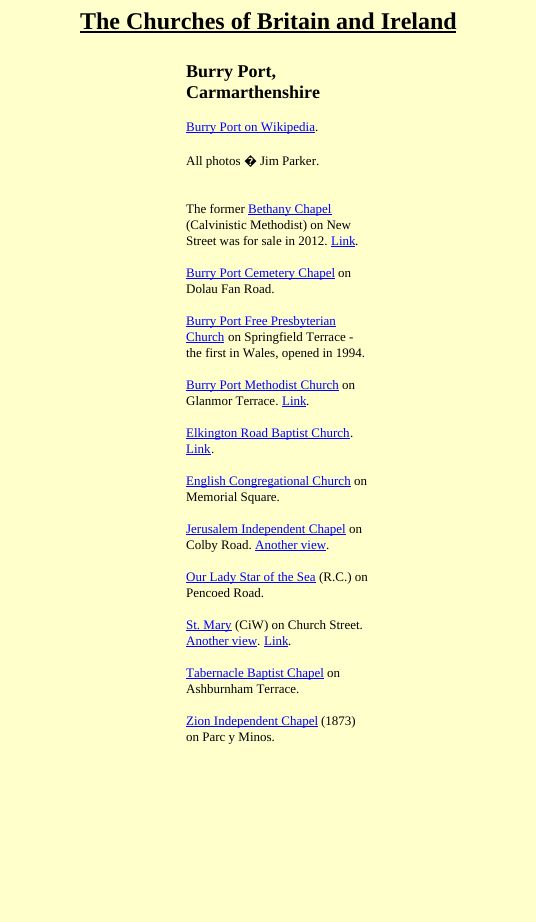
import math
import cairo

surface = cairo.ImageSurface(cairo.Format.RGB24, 536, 922)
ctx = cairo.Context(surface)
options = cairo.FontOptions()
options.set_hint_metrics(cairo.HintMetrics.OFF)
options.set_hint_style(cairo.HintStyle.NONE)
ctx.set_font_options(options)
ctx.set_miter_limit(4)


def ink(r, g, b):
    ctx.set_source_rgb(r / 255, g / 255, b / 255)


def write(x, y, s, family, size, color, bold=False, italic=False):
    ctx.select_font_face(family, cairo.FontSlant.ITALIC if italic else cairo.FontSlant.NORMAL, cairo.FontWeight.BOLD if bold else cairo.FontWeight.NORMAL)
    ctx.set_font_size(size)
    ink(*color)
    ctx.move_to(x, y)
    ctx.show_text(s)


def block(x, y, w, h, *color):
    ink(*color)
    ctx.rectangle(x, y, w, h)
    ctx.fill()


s1 = dict(family="Liberation Serif", size=24, color=(0, 0, 0), bold=True)
s2 = dict(family="Liberation Serif", size=18, color=(0, 0, 0), bold=True)
s3 = dict(family="Liberation Serif", size=13, color=(0, 0, 255))
s4 = dict(family="Liberation Serif", size=13, color=(0, 0, 0))
s5 = dict(family="Noto Sans", size=13, color=(0, 0, 0))

ink(255, 255, 204)
ctx.paint()
write(80, 29, "The Churches of Britain and Ireland", **s1)
block(80, 31, 376, 2, 0, 0, 0)
write(186, 77, "Burry Port,", **s2)
write(186, 98, "Carmarthenshire", **s2)
block(186, 132, 129, 1, 0, 0, 255)
write(186, 131, "Burry Port on Wikipedia", **s3)
write(315, 131, ".", **s4)
write(186, 165, "All photos", **s4)
write(244, 165, "�", **s5)
write(260, 165, "Jim Parker.", **s4)
write(186, 213, "The former", **s4)
block(248, 214, 84, 1, 0, 0, 255)
write(248, 213, "Bethany Chapel", **s3)
write(186, 229, "(Calvinistic Methodist) on New", **s4)
write(186, 245, "Street was for sale in 2012.", **s4)
write(331, 245, "Link", **s3)
write(355, 245, ".", **s4)
block(331, 246, 24, 1, 0, 0, 255)
block(186, 278, 149, 1, 0, 0, 255)
write(186, 277, "Burry Port Cemetery Chapel", **s3)
write(338, 277, "on", **s4)
write(186, 293, "Dolau Fan Road.", **s4)
block(186, 326, 150, 1, 0, 0, 255)
write(186, 325, "Burry Port Free Presbyterian", **s3)
write(186, 341, "Church", **s3)
block(186, 342, 38, 1, 0, 0, 255)
write(228, 341, "on Springfield Terrace -", **s4)
write(186, 357, "the first in Wales, opened in 1994.", **s4)
block(186, 390, 153, 1, 0, 0, 255)
write(186, 389, "Burry Port Methodist Church", **s3)
write(342, 389, "on", **s4)
write(186, 405, "Glanmor Terrace.", **s4)
write(282, 405, "Link", **s3)
write(306, 405, ".", **s4)
block(282, 406, 24, 1, 0, 0, 255)
block(186, 438, 164, 1, 0, 0, 255)
write(186, 437, "Elkington Road Baptist Church", **s3)
write(350, 437, ".", **s4)
write(186, 453, "Link", **s3)
write(211, 453, ".", **s4)
block(186, 454, 25, 1, 0, 0, 255)
block(186, 486, 165, 1, 0, 0, 255)
write(186, 485, "English Congregational Church", **s3)
write(354, 485, "on", **s4)
write(186, 501, "Memorial Square.", **s4)
block(186, 534, 160, 1, 0, 0, 255)
write(186, 533, "Jerusalem Independent Chapel", **s3)
write(349, 533, "on", **s4)
write(186, 549, "Colby Road.", **s4)
write(255, 549, "Another view", **s3)
write(326, 549, ".", **s4)
block(255, 550, 71, 1, 0, 0, 255)
block(186, 582, 130, 1, 0, 0, 255)
write(186, 581, "Our Lady Star of the Sea", **s3)
write(319, 581, "(R.C.) on", **s4)
write(186, 597, "Pencoed Road.", **s4)
block(186, 630, 46, 1, 0, 0, 255)
write(186, 629, "St. Mary", **s3)
write(235, 629, "(CiW) on Church Street.", **s4)
write(186, 645, "Another view", **s3)
write(257, 645, ".", **s4)
block(186, 646, 71, 1, 0, 0, 255)
write(264, 645, "Link", **s3)
write(288, 645, ".", **s4)
block(264, 646, 24, 1, 0, 0, 255)
block(186, 678, 138, 1, 0, 0, 255)
write(186, 677, "Tabernacle Baptist Chapel", **s3)
write(327, 677, "on", **s4)
write(186, 693, "Ashburnham Terrace.", **s4)
block(186, 726, 132, 1, 0, 0, 255)
write(186, 725, "Zion Independent Chapel", **s3)
write(321, 725, "(1873)", **s4)
write(186, 741, "on Parc y Minos.", **s4)
surface.write_to_png("screenshot.png")
